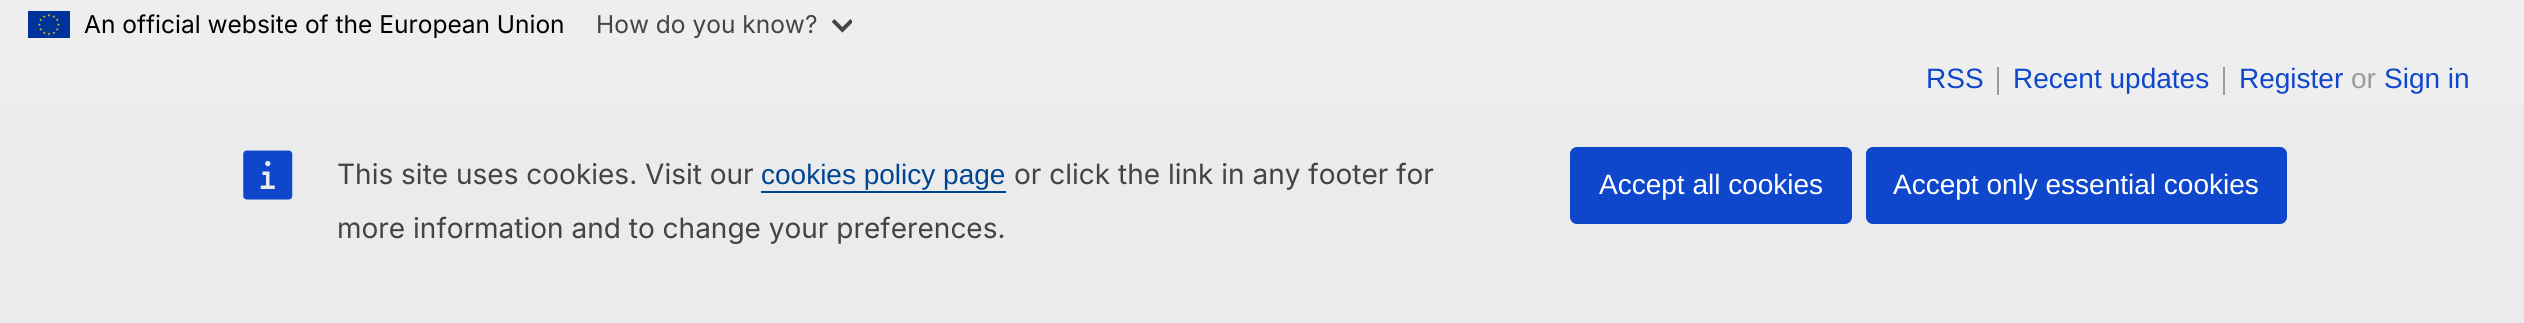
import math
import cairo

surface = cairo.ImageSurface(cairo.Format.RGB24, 2524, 323)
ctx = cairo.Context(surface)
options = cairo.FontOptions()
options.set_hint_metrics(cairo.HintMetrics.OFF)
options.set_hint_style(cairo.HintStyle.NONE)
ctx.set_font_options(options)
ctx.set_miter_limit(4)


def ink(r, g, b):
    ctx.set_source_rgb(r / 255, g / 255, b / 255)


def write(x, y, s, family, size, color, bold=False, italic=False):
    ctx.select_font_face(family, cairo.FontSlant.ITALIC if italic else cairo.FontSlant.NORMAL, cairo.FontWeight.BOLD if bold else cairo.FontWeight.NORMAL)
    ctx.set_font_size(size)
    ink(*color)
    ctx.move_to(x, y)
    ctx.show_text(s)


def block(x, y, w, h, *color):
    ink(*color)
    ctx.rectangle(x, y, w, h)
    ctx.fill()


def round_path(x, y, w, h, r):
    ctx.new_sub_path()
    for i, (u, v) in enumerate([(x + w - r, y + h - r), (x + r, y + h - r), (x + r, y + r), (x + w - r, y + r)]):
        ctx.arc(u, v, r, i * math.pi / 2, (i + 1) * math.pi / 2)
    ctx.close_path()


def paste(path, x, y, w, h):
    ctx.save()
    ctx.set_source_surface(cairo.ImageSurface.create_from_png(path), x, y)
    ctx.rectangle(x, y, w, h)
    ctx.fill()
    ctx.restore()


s1 = dict(family="Inter", size=24.5, color=(0, 0, 0))
s2 = dict(family="Inter", size=24.5, color=(68, 68, 68))
s3 = dict(family="Liberation Sans", size=28, color=(14, 71, 203))
s4 = dict(family="Liberation Sans", size=28, color=(155, 155, 155))
s5 = dict(family="Inter", size=28, color=(68, 68, 68))
s6 = dict(family="Liberation Sans", size=28, color=(0, 68, 148))
s7 = dict(family="Liberation Sans", size=28, color=(255, 255, 255))

ink(238, 238, 238)
ctx.paint()
paste("pic1.png", 28, 11, 42, 27)
write(84, 33, "An official website of the European Union", **s1)
write(596, 33, "How do you know?", **s2)
paste("pic2.png", 831, 19, 21, 14)
block(1997, 67, 2, 28, 155, 155, 155)
write(1926, 88, "RSS", **s3)
block(2223, 67, 2, 28, 155, 155, 155)
write(2013, 88, "Recent updates", **s3)
write(2239, 88, "Register", **s3)
write(2351, 88, "or", **s4)
write(2384, 88, "Sign in", **s3)
block(0, 105, 2524, 218, 235, 235, 235)
paste("pic3.png", 243, 150, 50, 50)
write(337, 184, "This site uses cookies. Visit our", **s5)
write(761, 184, "cookies policy page", **s6)
block(761, 191, 245, 2, 0, 68, 148)
write(1014, 184, "or click the link in any footer for", **s5)
write(337, 238, "more information and to change your preferences.", **s5)
ink(14, 71, 203)
round_path(1570, 147, 282, 77, 7)
ctx.fill()
write(1599, 194, "Accept all cookies", **s7)
ink(14, 71, 203)
round_path(1866, 147, 421, 77, 7)
ctx.fill()
write(1893, 194, "Accept only essential cookies", **s7)
surface.write_to_png("screenshot.png")
